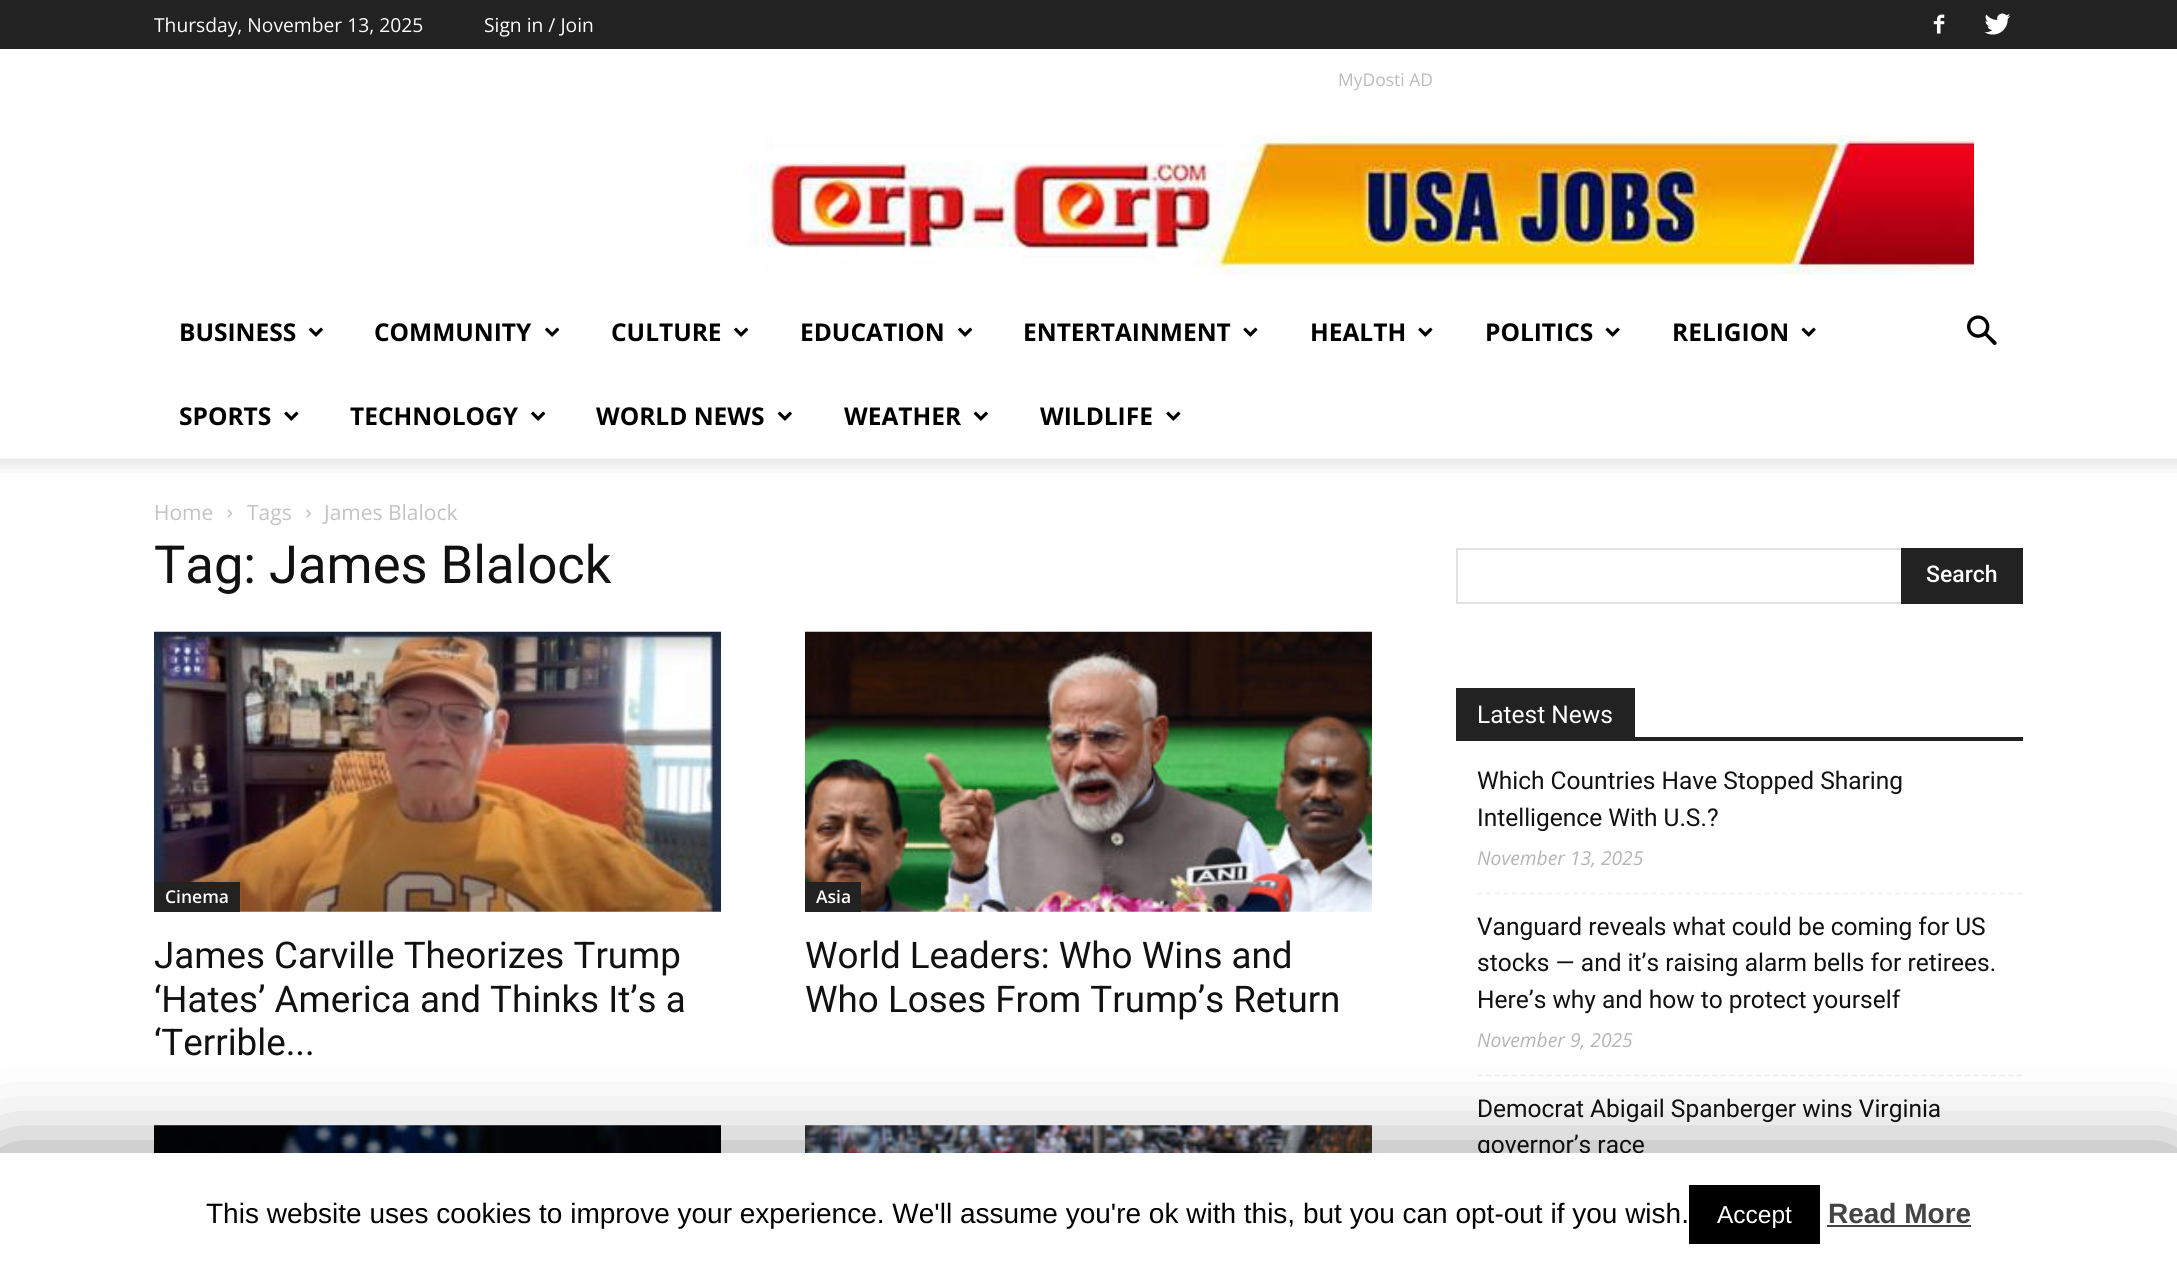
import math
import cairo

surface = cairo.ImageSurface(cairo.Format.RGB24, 2177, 1267)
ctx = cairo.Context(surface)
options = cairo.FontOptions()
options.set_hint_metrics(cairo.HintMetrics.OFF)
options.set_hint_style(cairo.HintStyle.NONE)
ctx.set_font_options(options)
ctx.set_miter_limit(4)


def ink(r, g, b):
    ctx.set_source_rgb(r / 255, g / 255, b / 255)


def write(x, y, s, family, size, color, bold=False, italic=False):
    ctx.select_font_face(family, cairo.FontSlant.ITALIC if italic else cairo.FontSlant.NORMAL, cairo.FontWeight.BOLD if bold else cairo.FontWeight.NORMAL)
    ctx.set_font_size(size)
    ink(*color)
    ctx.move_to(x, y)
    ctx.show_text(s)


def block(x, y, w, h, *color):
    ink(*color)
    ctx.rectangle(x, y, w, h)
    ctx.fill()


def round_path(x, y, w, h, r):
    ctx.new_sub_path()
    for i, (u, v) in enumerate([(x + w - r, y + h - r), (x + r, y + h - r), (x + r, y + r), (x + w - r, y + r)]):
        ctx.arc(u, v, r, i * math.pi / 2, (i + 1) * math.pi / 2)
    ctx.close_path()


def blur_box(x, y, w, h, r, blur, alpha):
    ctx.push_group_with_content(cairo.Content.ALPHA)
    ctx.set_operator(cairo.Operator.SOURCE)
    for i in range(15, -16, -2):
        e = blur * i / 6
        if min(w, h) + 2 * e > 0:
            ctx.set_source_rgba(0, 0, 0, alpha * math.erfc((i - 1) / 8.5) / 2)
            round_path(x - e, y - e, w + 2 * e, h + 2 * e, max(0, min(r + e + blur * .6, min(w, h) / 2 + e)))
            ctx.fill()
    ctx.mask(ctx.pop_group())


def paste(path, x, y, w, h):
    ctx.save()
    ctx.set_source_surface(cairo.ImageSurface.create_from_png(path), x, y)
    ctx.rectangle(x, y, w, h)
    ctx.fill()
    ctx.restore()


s1 = dict(family="Open Sans", size=19.25, color=(255, 255, 255))
s2 = dict(family="Open Sans", size=17.5, color=(187, 187, 187))
s3 = dict(family="Open Sans", size=24.5, color=(0, 0, 0), bold=True)
s4 = dict(family="Open Sans", size=21, color=(195, 195, 195))
s5 = dict(family="Roboto", size=52.5, color=(17, 17, 17))
s6 = dict(family="Open Sans SemiBold", size=17.5, color=(255, 255, 255))
s7 = dict(family="Roboto", size=36.75, color=(17, 17, 17))
s8 = dict(family="Roboto Medium", size=23, color=(255, 255, 255))
s9 = dict(family="Roboto", size=24.5, color=(255, 255, 255))
s10 = dict(family="Roboto", size=24.5, color=(17, 17, 17))
s11 = dict(family="Open Sans", size=19.25, color=(181, 181, 181), italic=True)
s12 = dict(family="Liberation Sans", size=28, color=(0, 0, 0))
s13 = dict(family="Liberation Sans", size=24.5, color=(255, 255, 255))
s14 = dict(family="Liberation Sans", size=28, color=(68, 68, 68), bold=True)

ink(255, 255, 255)
ctx.paint()
block(0, 0, 2177, 49, 34, 34, 34)
write(154, 32, "Thursday, November 13, 2025", **s1)
write(484, 32, "Sign in / Join", **s1)
paste("pic1.png", 1933, 14, 12, 20)
paste("pic2.png", 1984, 13, 27, 22)
write(1338, 86, "MyDosti AD", **s2)
paste("pic3.png", 749, 135, 1225, 140)
write(179, 341, "BUSINESS", **s3)
paste("pic4.png", 308, 327, 15, 10)
write(374, 341, "COMMUNITY", **s3)
paste("pic5.png", 545, 327, 15, 10)
write(611, 341, "CULTURE", **s3)
paste("pic5.png", 734, 327, 15, 10)
write(800, 341, "EDUCATION", **s3)
paste("pic5.png", 958, 327, 15, 10)
write(1023, 341, "ENTERTAINMENT", **s3)
paste("pic6.png", 1243, 327, 15, 10)
write(1310, 341, "HEALTH", **s3)
paste("pic6.png", 1418, 327, 15, 10)
write(1485, 341, "POLITICS", **s3)
paste("pic7.png", 1605, 327, 15, 10)
write(1672, 341, "RELIGION", **s3)
paste("pic7.png", 1801, 327, 15, 10)
write(179, 425, "SPORTS", **s3)
paste("pic6.png", 284, 411, 15, 10)
write(350, 425, "TECHNOLOGY", **s3)
paste("pic5.png", 531, 411, 15, 10)
write(596, 425, "WORLD NEWS", **s3)
paste("pic4.png", 777, 411, 15, 10)
write(844, 425, "WEATHER", **s3)
paste("pic4.png", 973, 411, 15, 10)
write(1040, 425, "WILDLIFE", **s3)
paste("pic6.png", 1166, 411, 15, 10)
paste("pic8.png", 1967, 315, 30, 30)
paste("pic9.png", 0, 458, 2177, 15)
write(154, 520, "Home", **s4)
paste("pic10.png", 227, 509, 6, 9)
write(247, 520, "Tags", **s4)
paste("pic11.png", 306, 509, 5, 9)
write(324, 520, "James Blalock", **s4)
write(154, 583, "Tag: James Blalock", **s5)
paste("pic12.png", 154, 631, 567, 281)
block(154, 882, 86, 30, 34, 34, 34)
write(165, 903, "Cinema", **s6)
write(154, 968, "James Carville Theorizes Trump", **s7)
write(154, 1012, "‘Hates’ America and Thinks It’s a", **s7)
write(154, 1055, "‘Terrible...", **s7)
paste("pic13.png", 805, 631, 567, 281)
block(805, 882, 56, 30, 34, 34, 34)
write(816, 903, "Asia", **s6)
write(805, 968, "World Leaders: Who Wins and", **s7)
write(805, 1012, "Who Loses From Trump’s Return", **s7)
paste("pic14.png", 154, 1125, 567, 28)
paste("pic15.png", 805, 1125, 567, 28)
block(1456, 548, 445, 2, 225, 225, 225)
block(1456, 602, 445, 2, 225, 225, 225)
block(1456, 548, 2, 56, 225, 225, 225)
block(1901, 548, 122, 56, 34, 34, 34)
write(1926, 582, "Search", **s8)
block(1456, 737, 567, 4, 34, 34, 34)
block(1456, 688, 179, 49, 34, 34, 34)
write(1477, 723, "Latest News", **s9)
ctx.new_path()
ctx.move_to(1477, 893.5)
ctx.line_to(2023, 893.5)
ink(241, 241, 241)
ctx.set_line_width(1.8)
ctx.set_dash([5.25, 3.46])
ctx.stroke()
write(1477, 789, "Which Countries Have Stopped Sharing", **s10)
write(1477, 826, "Intelligence With U.S.?", **s10)
write(1477, 865, "November 13, 2025", **s11)
ctx.new_path()
ctx.move_to(1477, 1075.5)
ctx.line_to(2023, 1075.5)
ink(241, 241, 241)
ctx.stroke()
write(1477, 935, "Vanguard reveals what could be coming for US", **s10)
write(1477, 971, "stocks — and it’s raising alarm bells for retirees.", **s10)
write(1477, 1008, "Here’s why and how to protect yourself", **s10)
write(1477, 1047, "November 9, 2025", **s11)
write(1477, 1117, "Democrat Abigail Spanberger wins Virginia", **s10)
write(1477, 1153, "governor’s race", **s10)
ink(0, 0, 0)
blur_box(0, 1162, 2177, 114, 0, 44, 0.5)
block(0, 1153, 2177, 114, 255, 255, 255)
write(206, 1223, "This website uses cookies to improve your experience. We'll assume you're ok with this, but you can opt-out if you wish.", **s12)
block(1689, 1185, 131, 59, 0, 0, 0)
write(1717, 1223, "Accept", **s13)
write(1828, 1223, "Read More", **s14)
block(1827, 1225, 144, 2, 68, 68, 68)
surface.write_to_png("screenshot.png")
